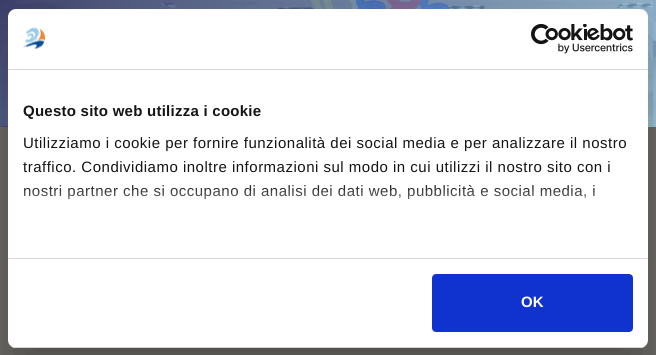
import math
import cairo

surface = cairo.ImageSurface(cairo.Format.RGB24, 656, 355)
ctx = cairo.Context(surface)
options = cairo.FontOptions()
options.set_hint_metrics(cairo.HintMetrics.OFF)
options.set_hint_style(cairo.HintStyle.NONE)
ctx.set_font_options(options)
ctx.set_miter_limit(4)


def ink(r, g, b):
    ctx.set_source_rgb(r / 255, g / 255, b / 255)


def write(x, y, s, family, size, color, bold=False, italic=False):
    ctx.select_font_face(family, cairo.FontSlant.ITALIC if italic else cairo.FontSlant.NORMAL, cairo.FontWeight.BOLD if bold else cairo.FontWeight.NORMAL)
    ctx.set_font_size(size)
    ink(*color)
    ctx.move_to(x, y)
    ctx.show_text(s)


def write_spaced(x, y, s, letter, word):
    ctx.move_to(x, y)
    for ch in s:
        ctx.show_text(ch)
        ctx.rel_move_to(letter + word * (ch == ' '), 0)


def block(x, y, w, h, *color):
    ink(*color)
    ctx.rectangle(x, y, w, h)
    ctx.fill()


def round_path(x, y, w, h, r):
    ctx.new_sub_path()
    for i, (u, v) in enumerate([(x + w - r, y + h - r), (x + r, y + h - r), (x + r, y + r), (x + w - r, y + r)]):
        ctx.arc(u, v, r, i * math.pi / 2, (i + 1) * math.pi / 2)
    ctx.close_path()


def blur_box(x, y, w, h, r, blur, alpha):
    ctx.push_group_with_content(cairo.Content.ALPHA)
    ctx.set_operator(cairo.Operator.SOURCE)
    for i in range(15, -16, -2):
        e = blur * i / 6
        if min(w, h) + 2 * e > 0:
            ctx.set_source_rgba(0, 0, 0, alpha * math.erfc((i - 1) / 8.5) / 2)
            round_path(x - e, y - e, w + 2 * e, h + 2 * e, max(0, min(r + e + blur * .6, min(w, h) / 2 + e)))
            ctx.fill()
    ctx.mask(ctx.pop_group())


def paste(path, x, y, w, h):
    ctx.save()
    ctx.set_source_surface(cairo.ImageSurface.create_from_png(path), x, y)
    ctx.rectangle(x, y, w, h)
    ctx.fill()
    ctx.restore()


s1 = dict(family="Liberation Sans", size=15, color=(255, 255, 255), bold=True)

ink(255, 255, 255)
ctx.paint()
paste("pic1.png", 0, 0, 656, 127)
gradient = cairo.LinearGradient(-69, -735, 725, 58)
gradient.add_color_stop_rgba(0, 0, 0.302, 0.608, 0.8)
gradient.add_color_stop_rgba(0.32, 0.125, 0.161, 0.404, 0.8)
gradient.add_color_stop_rgba(0.48, 0.125, 0.161, 0.404, 0.8)
gradient.add_color_stop_rgba(1, 0.592, 0.8, 0.922, 0.8)
ctx.set_source(gradient)
ctx.rectangle(0, 0, 656, 127)
ctx.fill()
block(0, 127, 656, 228, 111, 109, 105)
ink(0, 0, 0)
blur_box(8, 41, 640, 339, 8, 34, 0.3)
ink(255, 255, 255)
round_path(8, 9, 640, 339, 8)
ctx.fill()
block(8, 69, 640, 1, 214, 214, 214)
paste("pic2.png", 23, 27, 23, 22)
paste("pic3.png", 531, 24, 102, 30)
block(8, 258, 640, 1, 214, 214, 214)
ctx.select_font_face("Liberation Sans", cairo.FontSlant.NORMAL, cairo.FontWeight.BOLD)
ctx.set_font_size(15)
ink(20, 20, 20)
write_spaced(23, 116, "Questo sito web utilizza i cookie", 0.25, 0)
ctx.select_font_face("Liberation Sans")
write_spaced(23, 148, "Utilizziamo i cookie per fornire funzionalità dei social media e per analizzare il nostro", 0.5, 0)
write_spaced(23, 172, "traffico. Condividiamo inoltre informazioni sul modo in cui utilizzi il nostro sito con i", 0.5, 0)
write_spaced(23, 196, "nostri partner che si occupano di analisi dei dati web, pubblicità e social media, i", 0.5, 0)
gradient = cairo.LinearGradient(322, 258, 322, 183)
gradient.add_color_stop_rgba(0, 1, 1, 1, 1)
gradient.add_color_stop_rgba(0.5, 1, 1, 1, 0.8)
gradient.add_color_stop_rgba(1, 1, 1, 1, 0)
ctx.set_source(gradient)
ctx.rectangle(24, 185, 571, 15)
ctx.fill()
ctx.save()
round_path(8, 9, 640, 339, 8)
ctx.clip()
block(8, 347, 640, 1, 214, 214, 214)
ctx.restore()
ink(16, 50, 207)
round_path(433, 275, 199, 56, 3)
ctx.fill_preserve()
ctx.stroke()
write(521, 307, "OK", **s1)
surface.write_to_png("screenshot.png")
